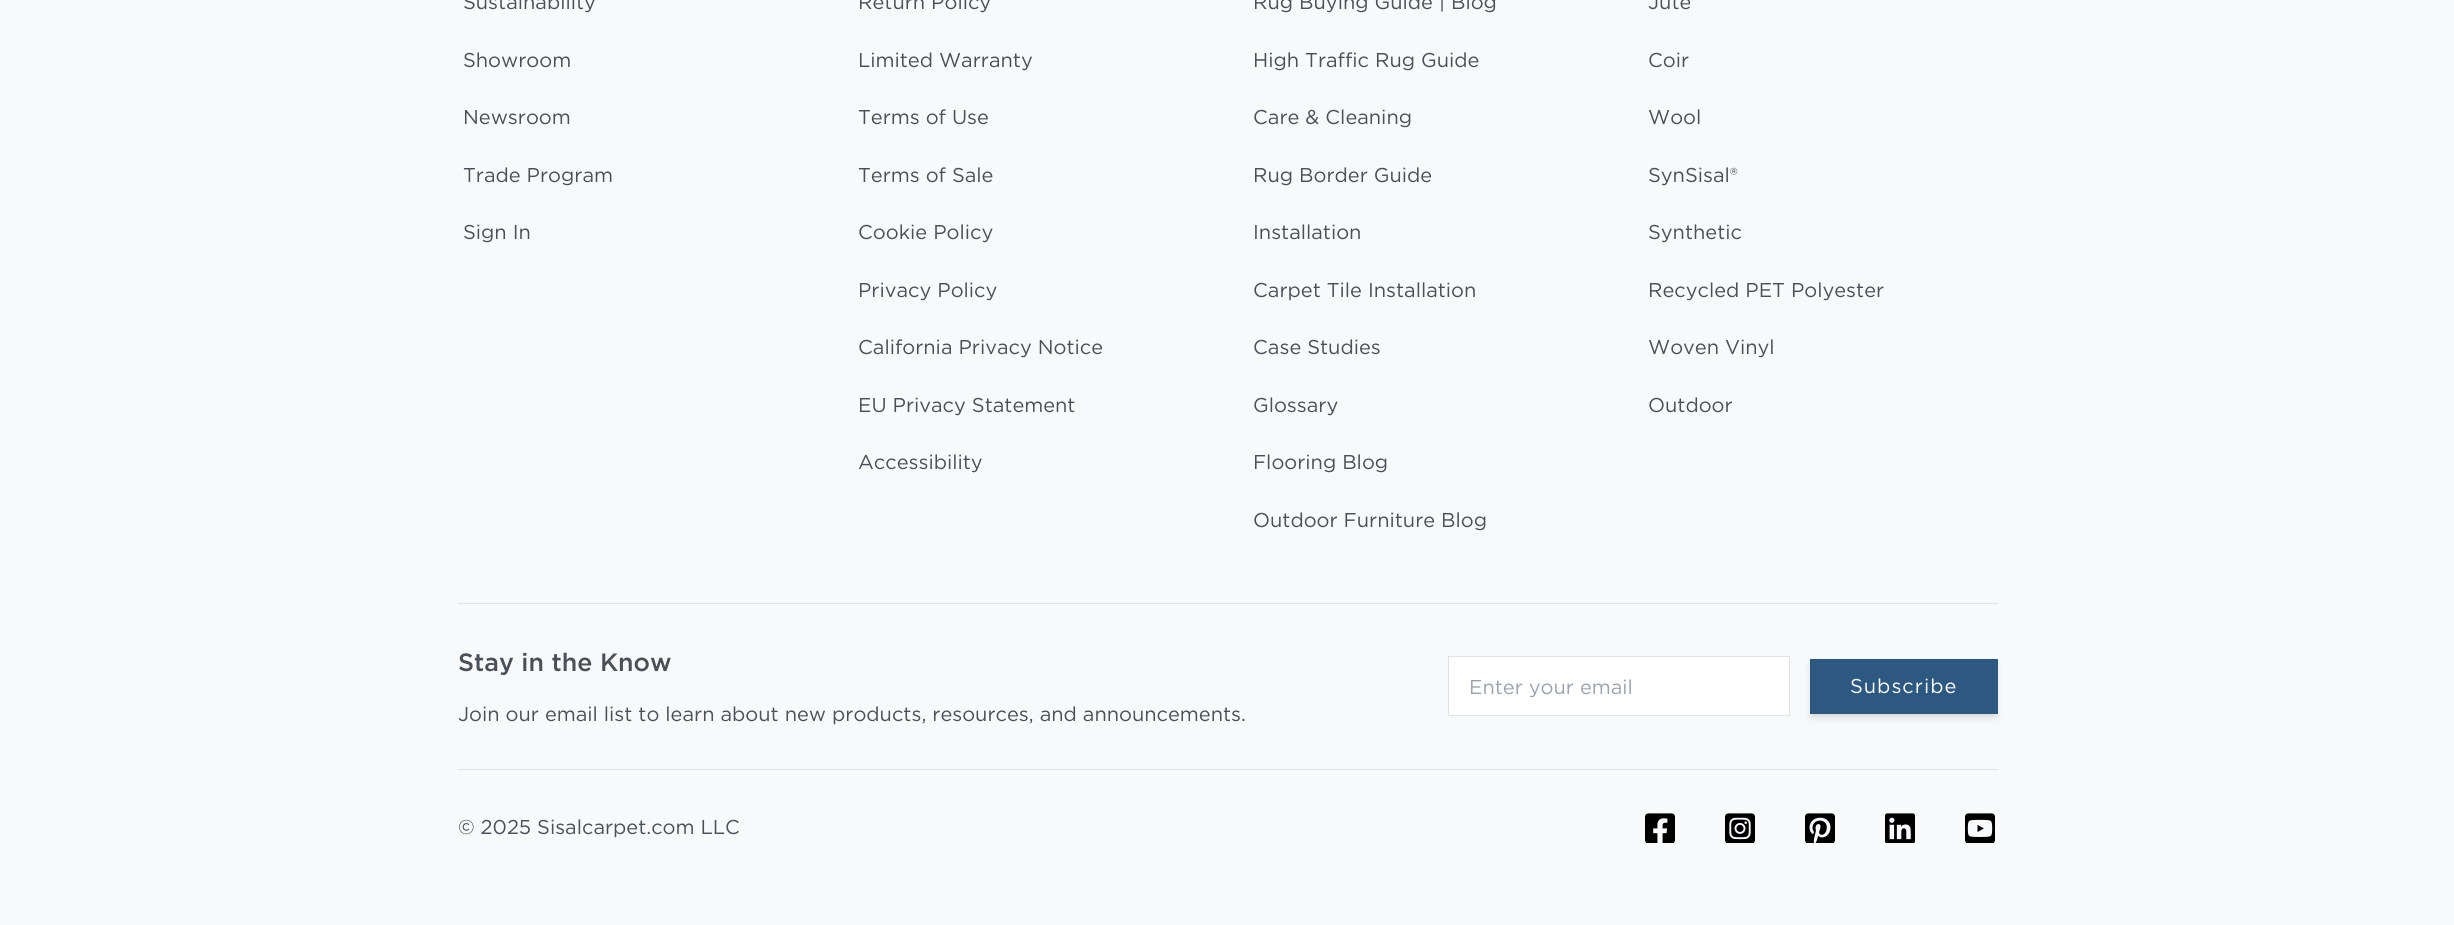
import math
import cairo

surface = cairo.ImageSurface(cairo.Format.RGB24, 2454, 925)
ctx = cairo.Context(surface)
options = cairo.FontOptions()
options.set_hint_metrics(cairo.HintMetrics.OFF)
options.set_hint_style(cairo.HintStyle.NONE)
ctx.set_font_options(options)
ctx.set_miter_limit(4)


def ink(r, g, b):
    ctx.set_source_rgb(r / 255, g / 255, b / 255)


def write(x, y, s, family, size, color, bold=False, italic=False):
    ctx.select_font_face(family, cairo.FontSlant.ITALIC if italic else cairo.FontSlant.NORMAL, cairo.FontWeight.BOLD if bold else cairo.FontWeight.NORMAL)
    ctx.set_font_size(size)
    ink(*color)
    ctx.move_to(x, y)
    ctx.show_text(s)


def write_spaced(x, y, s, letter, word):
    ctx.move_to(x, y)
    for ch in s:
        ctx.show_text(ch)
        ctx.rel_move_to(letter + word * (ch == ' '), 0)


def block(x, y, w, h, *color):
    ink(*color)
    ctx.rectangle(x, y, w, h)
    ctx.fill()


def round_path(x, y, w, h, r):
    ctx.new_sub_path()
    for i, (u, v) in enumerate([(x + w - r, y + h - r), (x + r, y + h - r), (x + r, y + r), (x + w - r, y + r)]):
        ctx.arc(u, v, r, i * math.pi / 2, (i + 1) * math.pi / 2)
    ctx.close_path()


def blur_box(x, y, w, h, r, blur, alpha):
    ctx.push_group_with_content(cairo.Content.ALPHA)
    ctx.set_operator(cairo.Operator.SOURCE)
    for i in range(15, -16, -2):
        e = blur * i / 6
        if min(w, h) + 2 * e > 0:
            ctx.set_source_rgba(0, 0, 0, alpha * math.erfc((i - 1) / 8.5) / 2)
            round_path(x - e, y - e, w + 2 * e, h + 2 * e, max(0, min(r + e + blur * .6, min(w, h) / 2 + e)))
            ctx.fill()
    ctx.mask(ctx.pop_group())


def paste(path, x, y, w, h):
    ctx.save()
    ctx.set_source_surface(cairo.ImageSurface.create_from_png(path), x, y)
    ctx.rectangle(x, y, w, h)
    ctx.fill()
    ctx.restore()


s1 = dict(family="Gotham", size=20, color=(73, 80, 87))
s2 = dict(family="Gotham Medium", size=25, color=(73, 80, 87))
s3 = dict(family="Gotham", size=20, color=(156, 163, 175))

ink(248, 249, 250)
ctx.paint()
write(463, 9, "Sustainability", **s1)
write(463, 67, "Showroom", **s1)
write(463, 124, "Newsroom", **s1)
write(463, 182, "Trade Program", **s1)
write(463, 239, "Sign In", **s1)
write(858, 9, "Return Policy", **s1)
write(858, 67, "Limited Warranty", **s1)
write(858, 124, "Terms of Use", **s1)
write(858, 182, "Terms of Sale", **s1)
write(858, 239, "Cookie Policy", **s1)
write(858, 297, "Privacy Policy", **s1)
write(858, 354, "California Privacy Notice", **s1)
write(858, 412, "EU Privacy Statement", **s1)
write(858, 469, "Accessibility", **s1)
write(1253, 9, "Rug Buying Guide | Blog", **s1)
write(1253, 67, "High Traffic Rug Guide", **s1)
write(1253, 124, "Care & Cleaning", **s1)
write(1253, 182, "Rug Border Guide", **s1)
write(1253, 239, "Installation", **s1)
write(1253, 297, "Carpet Tile Installation", **s1)
write(1253, 354, "Case Studies", **s1)
write(1253, 412, "Glossary", **s1)
write(1253, 469, "Flooring Blog", **s1)
write(1253, 527, "Outdoor Furniture Blog", **s1)
write(1648, 9, "Jute", **s1)
write(1648, 67, "Coir", **s1)
write(1648, 124, "Wool", **s1)
write(1648, 182, "SynSisal®", **s1)
write(1648, 239, "Synthetic", **s1)
write(1648, 297, "Recycled PET Polyester", **s1)
write(1648, 354, "Woven Vinyl", **s1)
write(1648, 412, "Outdoor", **s1)
block(458, 603, 1540, 1, 223, 226, 230)
write(458, 671, "Stay in the Know", **s2)
write(458, 721, "Join our email list to learn about new products, resources, and announcements.", **s1)
ink(255, 255, 255)
ctx.rectangle(1448.5, 656.5, 341, 59)
ctx.fill_preserve()
ink(223, 226, 230)
ctx.set_line_width(1)
ctx.stroke()
write(1469, 694, "Enter your email", **s3)
ink(0, 0, 0)
blur_box(1811, 663, 185, 52, 0, 2.5, 0.06)
blur_box(1811, 665, 185, 53, 0, 4, 0.1)
block(1810, 659, 188, 55, 44, 88, 129)
ink(255, 255, 255)
write_spaced(1850, 693, "Subscribe", 1, 0)
block(458, 769, 1540, 1, 223, 226, 230)
write(458, 834, "© 2025 Sisalcarpet.com LLC", **s1)
paste("pic1.png", 1645, 813, 30, 30)
paste("pic2.png", 1725, 813, 30, 30)
paste("pic3.png", 1805, 813, 30, 30)
paste("pic4.png", 1885, 813, 30, 30)
paste("pic5.png", 1965, 813, 30, 30)
surface.write_to_png("screenshot.png")
